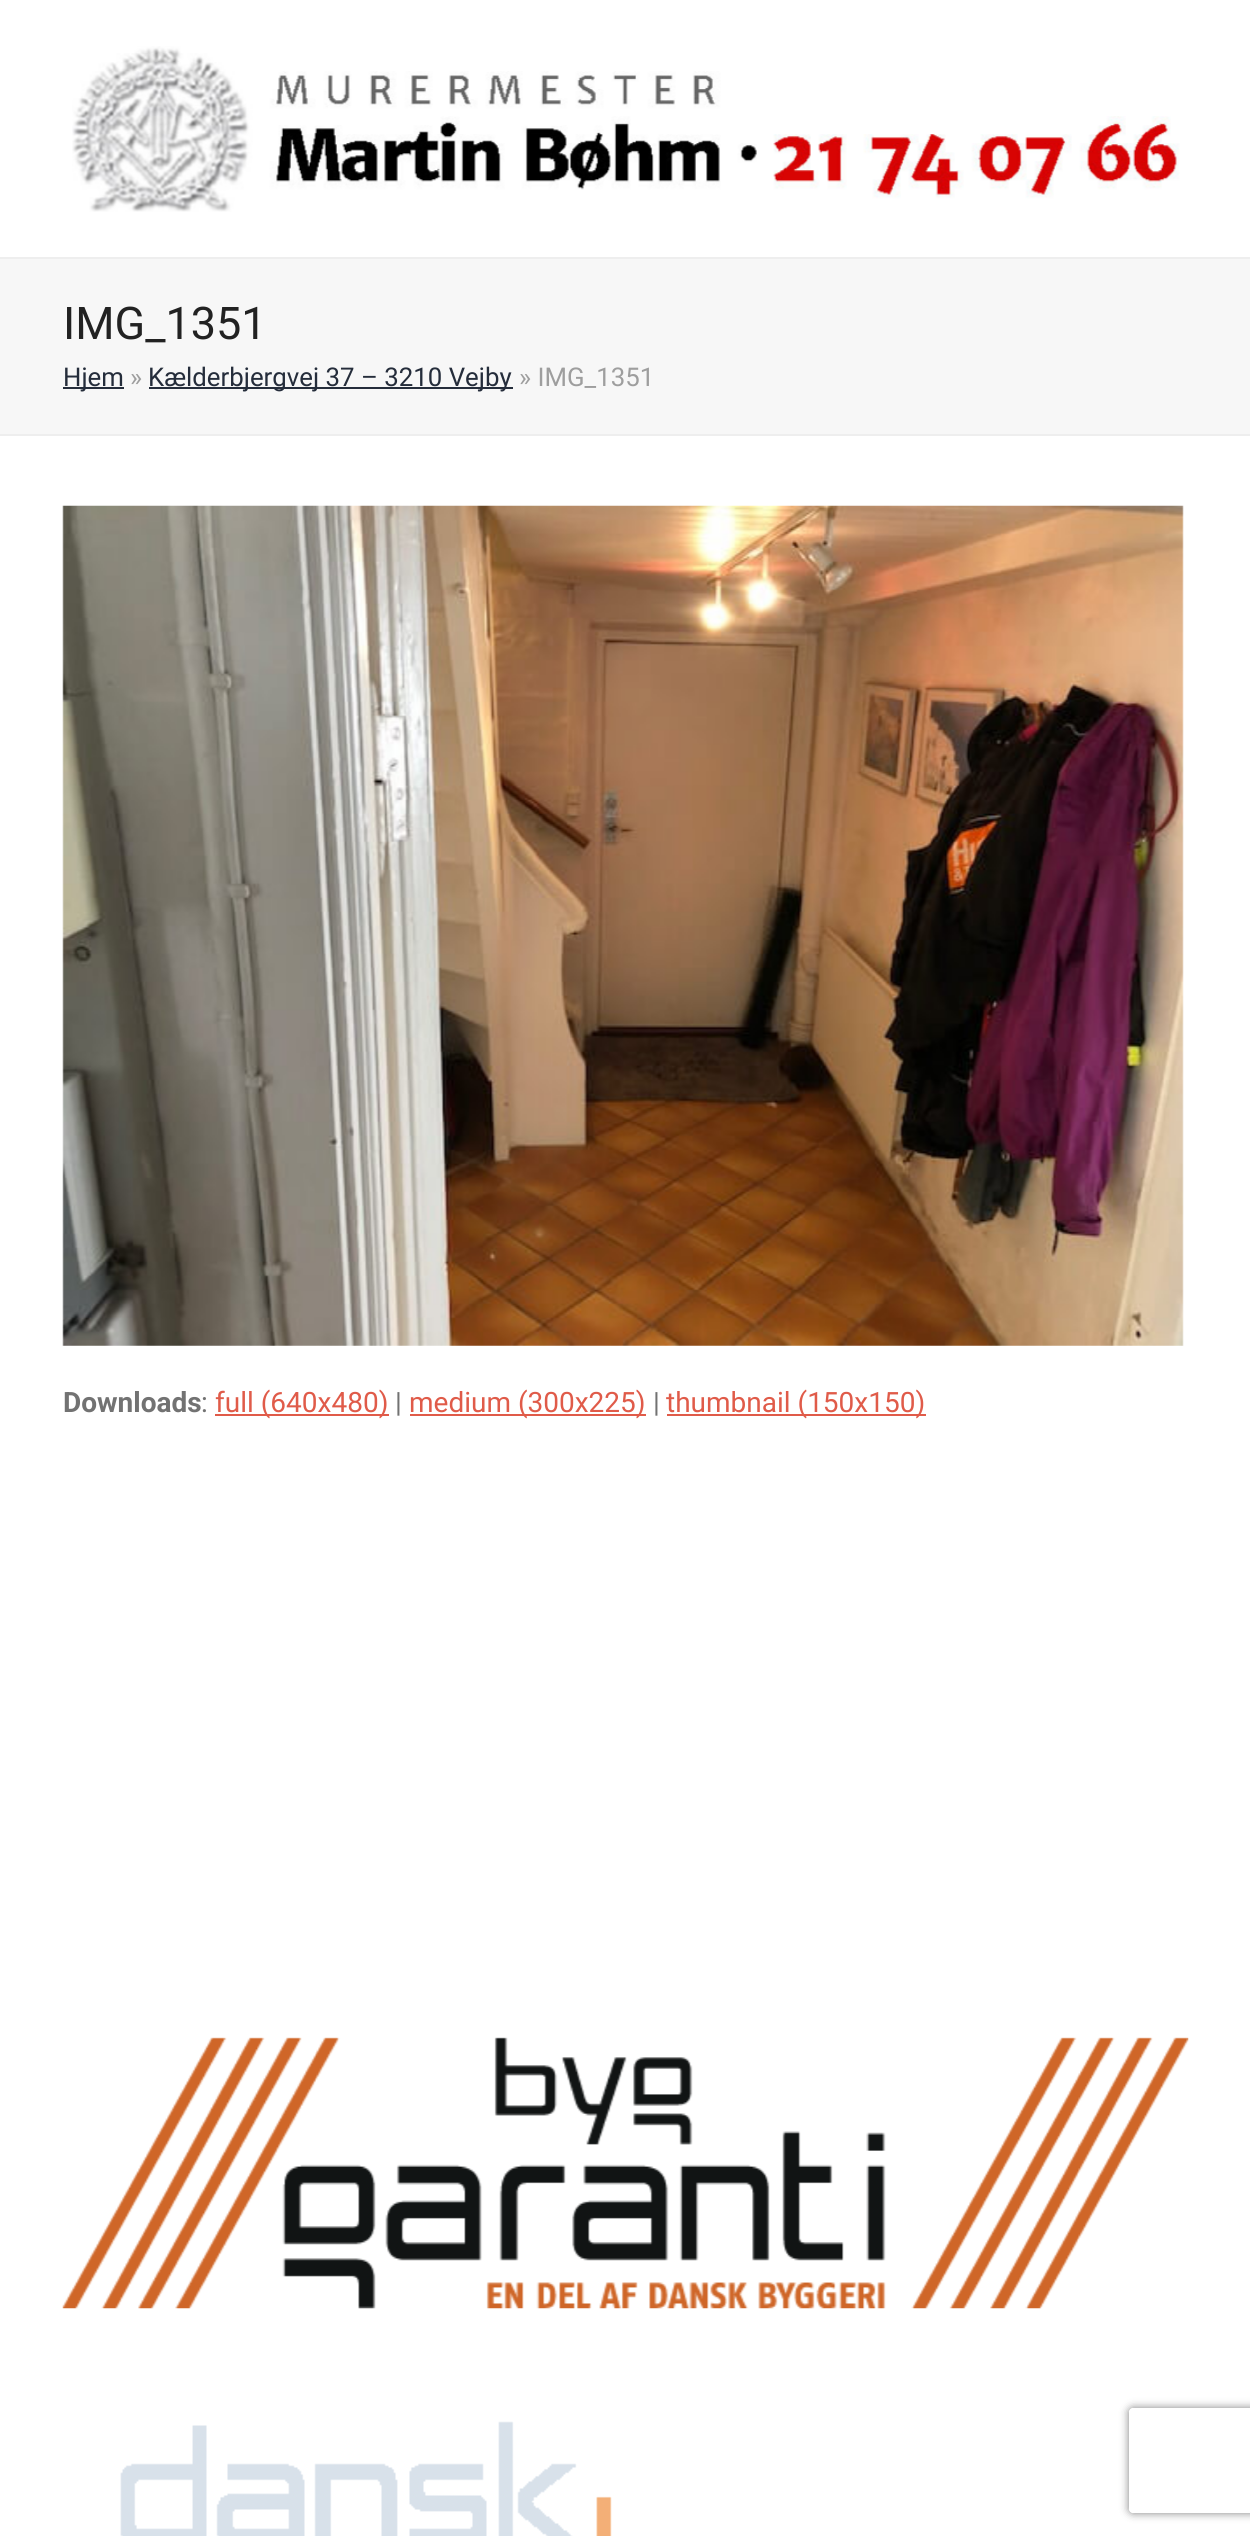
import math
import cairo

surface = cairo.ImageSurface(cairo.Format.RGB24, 1250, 2536)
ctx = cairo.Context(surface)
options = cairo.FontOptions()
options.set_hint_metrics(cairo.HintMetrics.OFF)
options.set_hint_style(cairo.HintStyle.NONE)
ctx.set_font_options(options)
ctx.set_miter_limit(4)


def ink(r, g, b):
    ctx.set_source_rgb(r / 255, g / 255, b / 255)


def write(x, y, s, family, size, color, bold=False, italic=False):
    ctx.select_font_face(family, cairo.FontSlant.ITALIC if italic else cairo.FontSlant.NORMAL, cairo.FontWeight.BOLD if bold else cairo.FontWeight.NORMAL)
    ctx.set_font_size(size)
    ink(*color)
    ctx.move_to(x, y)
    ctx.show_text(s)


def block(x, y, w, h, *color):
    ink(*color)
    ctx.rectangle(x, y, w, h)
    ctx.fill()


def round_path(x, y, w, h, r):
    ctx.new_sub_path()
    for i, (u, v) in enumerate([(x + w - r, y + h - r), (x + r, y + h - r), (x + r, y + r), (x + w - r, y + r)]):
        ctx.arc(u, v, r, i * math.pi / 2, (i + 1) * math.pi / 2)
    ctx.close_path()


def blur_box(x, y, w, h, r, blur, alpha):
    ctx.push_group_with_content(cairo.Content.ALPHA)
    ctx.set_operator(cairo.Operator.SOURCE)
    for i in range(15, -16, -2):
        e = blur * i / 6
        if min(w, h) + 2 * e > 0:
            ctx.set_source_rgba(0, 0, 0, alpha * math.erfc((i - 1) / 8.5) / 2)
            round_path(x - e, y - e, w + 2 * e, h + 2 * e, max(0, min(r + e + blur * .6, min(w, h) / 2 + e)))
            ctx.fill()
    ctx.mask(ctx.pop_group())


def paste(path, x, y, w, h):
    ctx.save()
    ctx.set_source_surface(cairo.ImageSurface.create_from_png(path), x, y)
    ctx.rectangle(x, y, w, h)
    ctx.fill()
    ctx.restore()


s1 = dict(family="Roboto", size=45, color=(34, 34, 34))
s2 = dict(family="Roboto", size=25.8, color=(37, 45, 59))
s3 = dict(family="Roboto", size=25.8, color=(158, 158, 158))
s4 = dict(family="Roboto", size=28, color=(114, 114, 114), bold=True)
s5 = dict(family="Roboto", size=28, color=(114, 114, 114))
s6 = dict(family="Roboto", size=28, color=(224, 91, 73))

ink(255, 255, 255)
ctx.paint()
paste("pic1.png", 72, 46, 1108, 166)
block(0, 259, 1250, 175, 247, 247, 247)
block(0, 257, 1250, 2, 238, 238, 238)
block(0, 434, 1250, 2, 238, 238, 238)
write(63, 339, "IMG_1351", **s1)
block(63, 387, 61, 2, 37, 45, 59)
write(63, 386, "Hjem", **s2)
write(130, 386, "»", **s3)
block(149, 387, 364, 2, 37, 45, 59)
write(148, 386, "Kælderbjergvej 37 – 3210 Vejby", **s2)
write(519, 386, "» IMG_1351", **s3)
paste("pic2.png", 62, 505, 1122, 841)
write(63, 1412, "Downloads", **s4)
write(201, 1412, ":", **s5)
block(215, 1414, 174, 2, 224, 91, 73)
write(215, 1412, "full (640x480)", **s6)
write(395, 1412, "|", **s5)
block(410, 1414, 236, 2, 224, 91, 73)
write(409, 1412, "medium (300x225)", **s6)
write(653, 1412, "|", **s5)
block(667, 1414, 259, 2, 224, 91, 73)
write(666, 1412, "thumbnail (150x150)", **s6)
paste("pic3.png", 62, 2037, 1127, 272)
paste("pic4.png", 120, 2421, 492, 115)
ctx.save()
ctx.set_fill_rule(cairo.FillRule.EVEN_ODD)
ctx.new_path()
ctx.move_to(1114, 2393)
ctx.line_to(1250, 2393)
ctx.line_to(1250, 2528)
ctx.line_to(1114, 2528)
ctx.close_path()
ctx.move_to(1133, 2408)
ctx.line_to(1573, 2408)
ctx.curve_to(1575, 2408, 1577, 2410, 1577, 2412)
ctx.line_to(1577, 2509)
ctx.curve_to(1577, 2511, 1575, 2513, 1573, 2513)
ctx.line_to(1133, 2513)
ctx.curve_to(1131, 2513, 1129, 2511, 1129, 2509)
ctx.line_to(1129, 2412)
ctx.curve_to(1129, 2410, 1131, 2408, 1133, 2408)
ctx.close_path()
ctx.clip()
ink(128, 128, 128)
blur_box(1129, 2408, 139, 105, 4, 4.5, 1)
ctx.restore()
surface.write_to_png("screenshot.png")
